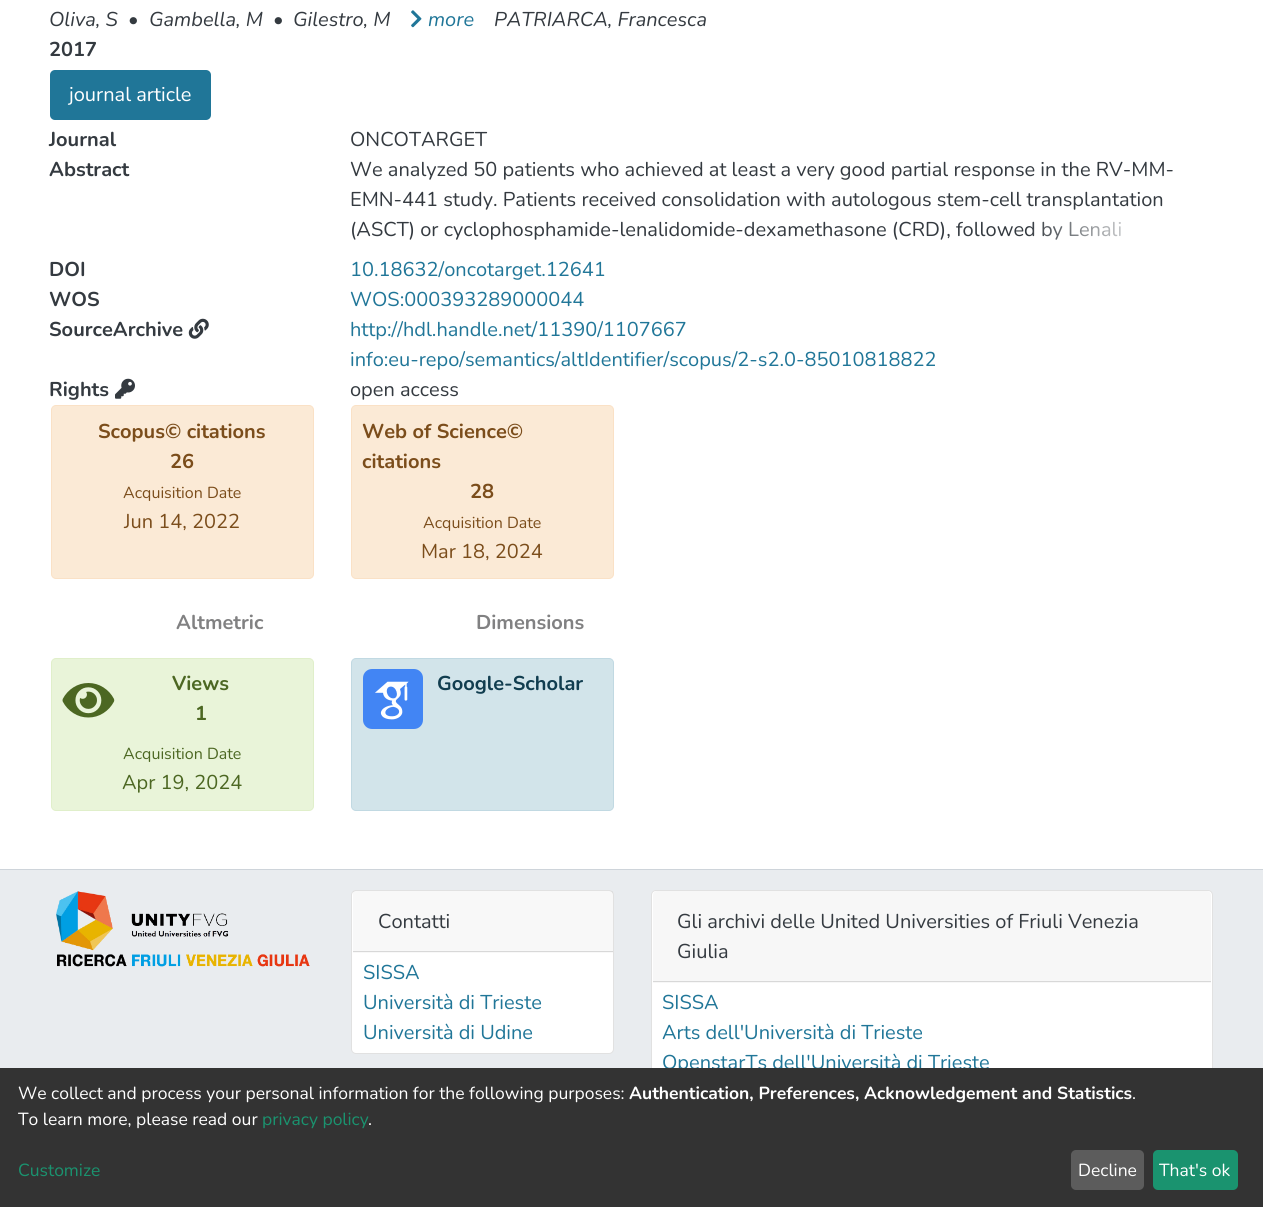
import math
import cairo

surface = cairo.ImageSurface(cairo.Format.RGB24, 1263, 1207)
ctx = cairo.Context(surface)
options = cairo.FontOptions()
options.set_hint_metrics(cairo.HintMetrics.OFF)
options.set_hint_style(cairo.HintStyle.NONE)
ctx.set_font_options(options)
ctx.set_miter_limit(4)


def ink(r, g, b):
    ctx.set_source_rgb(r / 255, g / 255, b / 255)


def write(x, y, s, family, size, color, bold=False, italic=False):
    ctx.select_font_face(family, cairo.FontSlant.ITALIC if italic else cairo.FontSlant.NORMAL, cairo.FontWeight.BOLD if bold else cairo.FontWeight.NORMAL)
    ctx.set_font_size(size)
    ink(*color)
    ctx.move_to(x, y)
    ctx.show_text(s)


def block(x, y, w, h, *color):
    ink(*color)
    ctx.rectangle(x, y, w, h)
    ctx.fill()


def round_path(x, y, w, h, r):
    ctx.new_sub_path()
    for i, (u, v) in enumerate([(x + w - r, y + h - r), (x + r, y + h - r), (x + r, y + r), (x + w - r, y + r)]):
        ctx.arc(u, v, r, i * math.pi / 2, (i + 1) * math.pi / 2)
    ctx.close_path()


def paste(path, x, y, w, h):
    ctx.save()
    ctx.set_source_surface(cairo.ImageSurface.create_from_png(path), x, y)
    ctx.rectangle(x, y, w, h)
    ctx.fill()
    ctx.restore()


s1 = dict(family="Nunito", size=20, color=(52, 58, 64), italic=True)
s2 = dict(family="Nunito", size=20, color=(32, 118, 152), italic=True)
s3 = dict(family="Nunito", size=20, color=(52, 58, 64), bold=True)
s4 = dict(family="Nunito", size=20, color=(255, 255, 255))
s5 = dict(family="Nunito", size=20, color=(52, 58, 64))
s6 = dict(family="Nunito", size=20, color=(32, 118, 152))
s7 = dict(family="Nunito", size=20, color=(123, 77, 27), bold=True)
s8 = dict(family="Nunito", size=16, color=(123, 77, 27))
s9 = dict(family="Nunito", size=20, color=(123, 77, 27))
s10 = dict(family="Nunito", size=20, color=(129, 129, 130), bold=True)
s11 = dict(family="Nunito", size=20, color=(76, 103, 34), bold=True)
s12 = dict(family="Nunito", size=16, color=(76, 103, 34))
s13 = dict(family="Nunito", size=20, color=(76, 103, 34))
s14 = dict(family="Nunito", size=20, color=(17, 61, 79), bold=True)
s15 = dict(family="Nunito", size=17.5, color=(255, 255, 255))
s16 = dict(family="Nunito", size=17.5, color=(255, 255, 255), bold=True)
s17 = dict(family="Nunito", size=17.5, color=(26, 147, 111))

ink(255, 255, 255)
ctx.paint()
write(49, 26, "Oliva, S", **s1)
write(128, 26, "•", **s1)
write(149, 26, "Gambella, M", **s1)
write(273, 26, "•", **s1)
write(293, 26, "Gilestro, M", **s1)
paste("pic1.png", 411, 10, 11, 18)
write(428, 26, "more", **s2)
write(494, 26, "PATRIARCA, Francesca", **s1)
write(49, 56, "2017", **s3)
ink(32, 118, 152)
round_path(50, 70, 161, 50, 5)
ctx.fill()
write(69, 101, "journal article", **s4)
write(49, 146, "Journal", **s3)
write(350, 146, "ONCOTARGET", **s5)
write(49, 176, "Abstract", **s3)
write(350, 176, "We analyzed 50 patients who achieved at least a very good partial response in the RV-MM-", **s5)
write(350, 206, "EMN-441 study. Patients received consolidation with autologous stem-cell transplantation", **s5)
write(350, 236, "(ASCT) or cyclophosphamide-lenalidomide-dexamethasone (CRD), followed by Lenali", **s5)
gradient = cairo.LinearGradient(1028, 230, 1215, 230)
gradient.add_color_stop_rgba(0, 1, 1, 1, 0)
gradient.add_color_stop_rgba(0.7, 1, 1, 1, 1)
ctx.set_source(gradient)
ctx.rectangle(1031, 221, 90, 19)
ctx.fill()
write(49, 276, "DOI", **s3)
write(350, 276, "10.18632/oncotarget.12641", **s6)
write(49, 306, "WOS", **s3)
write(350, 306, "WOS:000393289000044", **s6)
write(49, 336, "SourceArchive", **s3)
paste("pic2.png", 188, 318, 21, 21)
write(350, 336, "http://hdl.handle.net/11390/1107667", **s6)
write(350, 366, "info:eu-repo/semantics/altIdentifier/scopus/2-s2.0-85010818822", **s6)
write(49, 396, "Rights", **s3)
paste("pic3.png", 115, 378, 20, 21)
write(350, 396, "open access", **s5)
ink(251, 234, 214)
round_path(51.5, 405.5, 262, 173, 4.5)
ctx.fill_preserve()
ink(250, 225, 198)
ctx.set_line_width(1)
ctx.stroke()
write(98, 438, "Scopus© citations", **s7)
write(170, 468, "26", **s7)
write(123, 498, "Acquisition Date", **s8)
write(124, 528, "Jun 14, 2022", **s9)
ink(251, 234, 214)
round_path(351.5, 405.5, 262, 173, 4.5)
ctx.fill_preserve()
ink(250, 225, 198)
ctx.stroke()
write(362, 438, "Web of Science©", **s7)
write(362, 468, "citations", **s7)
write(470, 498, "28", **s7)
write(423, 528, "Acquisition Date", **s8)
write(421, 558, "Mar 18, 2024", **s9)
write(176, 629, "Altmetric", **s10)
write(476, 629, "Dimensions", **s10)
ink(233, 244, 217)
round_path(51.5, 658.5, 262, 152, 4.5)
ctx.fill_preserve()
ink(224, 239, 202)
ctx.stroke()
paste("pic4.png", 62, 683, 53, 35)
write(172, 690, "Views", **s11)
write(195, 720, "1", **s11)
write(123, 759, "Acquisition Date", **s12)
write(122, 789, "Apr 19, 2024", **s13)
ink(210, 228, 234)
round_path(351.5, 658.5, 262, 152, 4.5)
ctx.fill_preserve()
ink(193, 217, 226)
ctx.stroke()
paste("pic5.png", 363, 669, 60, 60)
write(437, 690, "Google-Scholar", **s14)
block(0, 869, 1263, 1, 206, 212, 218)
block(0, 870, 1263, 198, 233, 236, 239)
paste("pic6.png", 56, 891, 254, 76)
ink(255, 255, 255)
round_path(351, 890, 263, 164, 5)
ctx.fill()
round_path(351.5, 890.5, 262, 163, 4.5)
ctx.set_source_rgba(0, 0, 0, 0.12)
ctx.stroke()
ctx.set_source_rgba(0, 0, 0, 0.03)
ctx.rectangle(353, 891, 260, 62)
ctx.fill()
block(353, 951, 260, 1, 216, 216, 216)
write(378, 928, "Contatti", **s5)
write(363, 979, "SISSA", **s6)
write(363, 1009, "Università di Trieste", **s6)
write(363, 1039, "Università di Udine", **s6)
ink(255, 255, 255)
round_path(651, 890, 562, 224, 5)
ctx.fill()
round_path(651.5, 890.5, 561, 223, 4.5)
ctx.set_source_rgba(0, 0, 0, 0.12)
ctx.stroke()
ink(247, 247, 247)
ctx.new_path()
ctx.move_to(657, 891)
ctx.line_to(1207, 891)
ctx.curve_to(1209, 891, 1211, 893, 1211, 895)
ctx.line_to(1211, 983)
ctx.line_to(653, 983)
ctx.line_to(653, 895)
ctx.curve_to(653, 893, 655, 891, 657, 891)
ctx.close_path()
ctx.fill()
block(653, 981, 558, 1, 216, 216, 216)
write(677, 928, "Gli archivi delle United Universities of Friuli Venezia", **s5)
write(677, 958, "Giulia", **s5)
write(662, 1009, "SISSA", **s6)
write(662, 1039, "Arts dell'Università di Trieste", **s6)
write(662, 1069, "OpenstarTs dell'Università di Trieste", **s6)
block(0, 1068, 1263, 139, 51, 51, 51)
write(18, 1099, "We collect and process your personal information for the following purposes:", **s15)
write(629, 1099, "Authentication, Preferences, Acknowledgement and Statistics", **s16)
write(1132, 1099, ".", **s15)
write(18, 1125, "To learn more, please read our", **s15)
write(262, 1125, "privacy policy", **s17)
write(368, 1125, ".", **s15)
write(18, 1176, "Customize", **s17)
ink(92, 92, 92)
round_path(1071, 1150, 73, 40, 5)
ctx.fill()
write(1078, 1176, "Decline", **s15)
ink(26, 147, 111)
round_path(1153, 1150, 85, 40, 5)
ctx.fill()
write(1159, 1176, "That's ok", **s15)
surface.write_to_png("screenshot.png")
